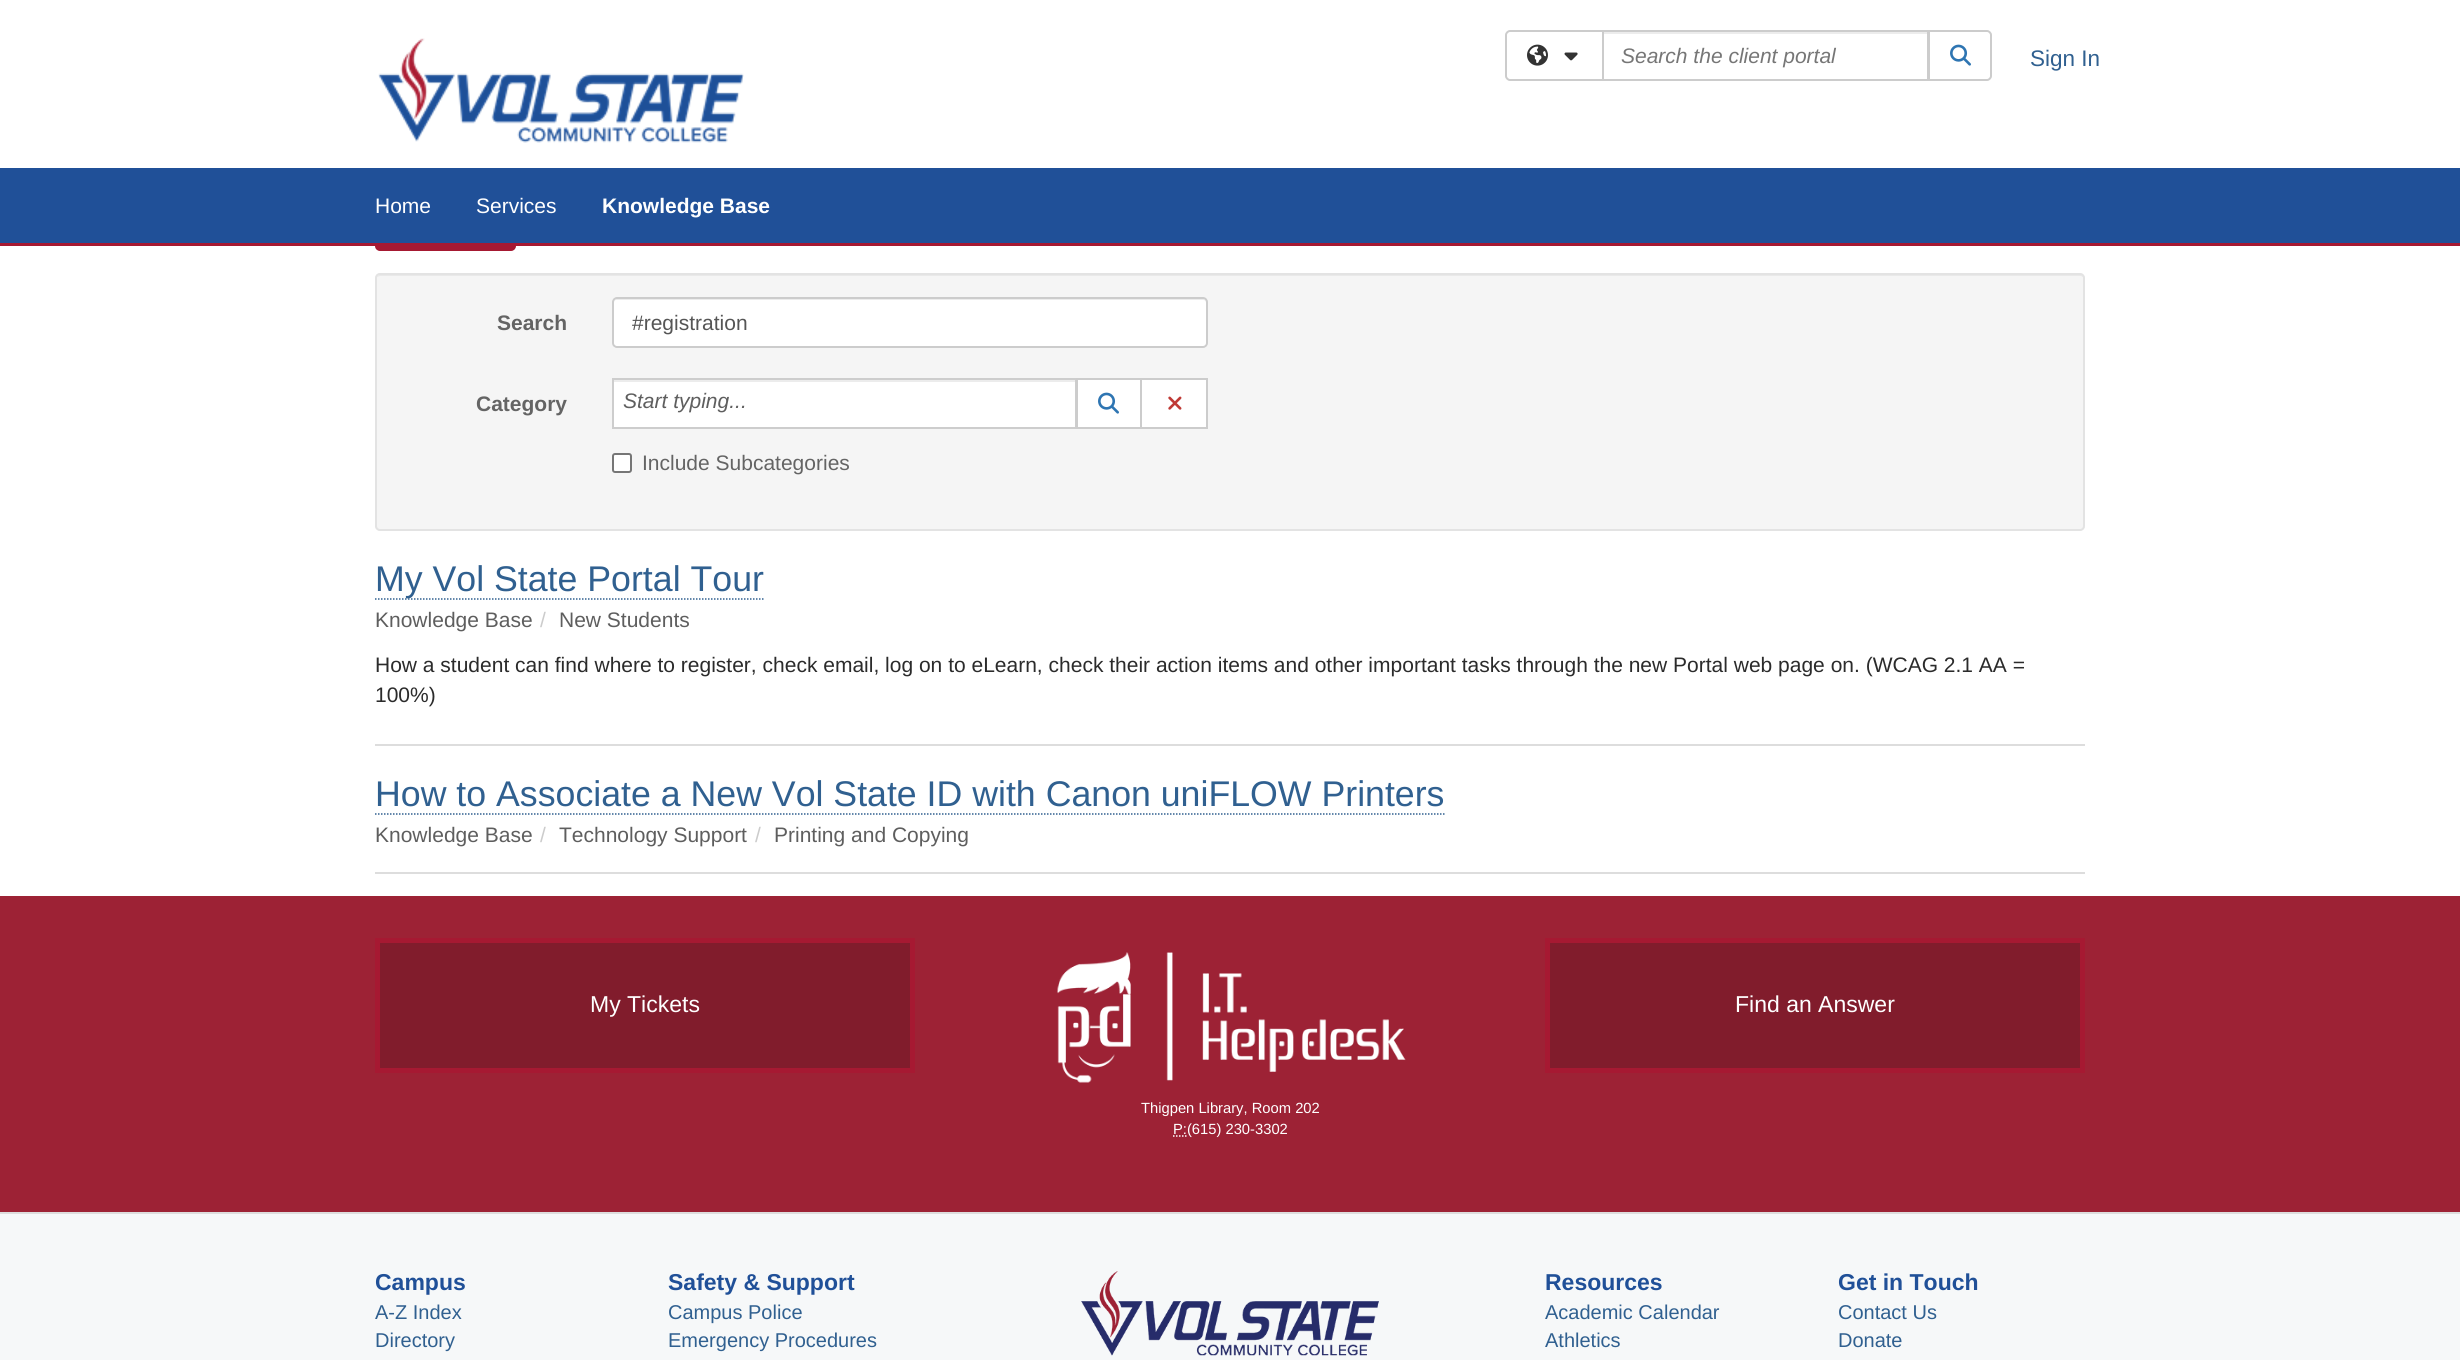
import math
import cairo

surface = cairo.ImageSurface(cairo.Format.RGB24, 2460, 1360)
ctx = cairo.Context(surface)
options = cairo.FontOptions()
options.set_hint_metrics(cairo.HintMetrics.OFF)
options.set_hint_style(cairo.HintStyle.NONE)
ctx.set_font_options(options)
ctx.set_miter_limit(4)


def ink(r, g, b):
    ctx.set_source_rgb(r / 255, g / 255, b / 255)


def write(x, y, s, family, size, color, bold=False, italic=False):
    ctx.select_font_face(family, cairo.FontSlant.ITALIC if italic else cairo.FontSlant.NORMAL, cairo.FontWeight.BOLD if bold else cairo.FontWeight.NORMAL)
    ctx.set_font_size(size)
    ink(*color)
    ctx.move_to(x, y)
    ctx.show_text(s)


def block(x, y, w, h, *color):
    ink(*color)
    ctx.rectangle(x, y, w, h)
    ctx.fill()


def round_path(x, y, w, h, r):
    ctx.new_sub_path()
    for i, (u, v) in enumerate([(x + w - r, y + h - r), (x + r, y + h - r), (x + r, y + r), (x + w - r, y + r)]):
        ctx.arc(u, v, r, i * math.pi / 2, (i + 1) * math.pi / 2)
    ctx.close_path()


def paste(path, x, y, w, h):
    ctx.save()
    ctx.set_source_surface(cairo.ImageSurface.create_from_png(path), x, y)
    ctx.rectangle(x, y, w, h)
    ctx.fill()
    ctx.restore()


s1 = dict(family="Liberation Sans", size=21, color=(118, 118, 118), italic=True)
s2 = dict(family="Liberation Sans", size=22.5, color=(48, 96, 144))
s3 = dict(family="Liberation Sans", size=21, color=(255, 255, 255))
s4 = dict(family="Liberation Sans", size=21, color=(255, 255, 255), bold=True)
s5 = dict(family="Liberation Sans", size=21, color=(100, 100, 100), bold=True)
s6 = dict(family="Liberation Sans", size=21, color=(85, 85, 85))
s7 = dict(family="Liberation Sans", size=21, color=(94, 94, 94), italic=True)
s8 = dict(family="Liberation Sans", size=21, color=(100, 100, 100))
s9 = dict(family="Liberation Sans", size=35.7, color=(48, 96, 144))
s10 = dict(family="Liberation Sans", size=21, color=(94, 94, 94))
s11 = dict(family="Liberation Sans", size=21, color=(204, 204, 204))
s12 = dict(family="Liberation Sans", size=21, color=(43, 43, 43))
s13 = dict(family="Liberation Sans", size=23, color=(255, 255, 255))
s14 = dict(family="Liberation Sans", size=14.75, color=(255, 255, 255))
s15 = dict(family="Liberation Sans", size=23, color=(32, 80, 152), bold=True)
s16 = dict(family="Liberation Sans", size=20, color=(48, 96, 144))

ink(255, 255, 255)
ctx.paint()
paste("pic1.png", 378, 38, 366, 105)
ctx.new_path()
ctx.move_to(1510, 31)
ctx.line_to(1603, 31)
ctx.line_to(1603, 80)
ctx.line_to(1510, 80)
ctx.curve_to(1508, 80, 1506, 78, 1506, 76)
ctx.line_to(1506, 35)
ctx.curve_to(1506, 33, 1508, 31, 1510, 31)
ctx.close_path()
ink(204, 204, 204)
ctx.stroke()
paste("pic2.png", 1527, 44, 21, 22)
paste("pic3.png", 1564, 52, 14, 9)
block(1604, 32, 324, 2, 236, 236, 236)
ctx.rectangle(1603, 31, 325, 49)
ink(204, 204, 204)
ctx.stroke()
write(1621, 63, "Search the client portal", **s1)
ink(255, 255, 255)
ctx.new_path()
ctx.move_to(1929, 31)
ctx.line_to(1987, 31)
ctx.curve_to(1989, 31, 1991, 33, 1991, 35)
ctx.line_to(1991, 76)
ctx.curve_to(1991, 78, 1989, 80, 1987, 80)
ctx.line_to(1929, 80)
ctx.close_path()
ctx.fill_preserve()
ink(204, 204, 204)
ctx.stroke()
paste("pic4.png", 1950, 44, 21, 22)
write(2030, 66, "Sign In", **s2)
ink(166, 25, 50)
round_path(376, 201, 139, 49, 4)
ctx.fill_preserve()
ctx.stroke()
block(0, 168, 2460, 75, 32, 80, 152)
block(0, 243, 2460, 3, 166, 25, 50)
write(375, 213, "Home", **s3)
write(476, 213, "Services", **s3)
write(602, 213, "Knowledge Base", **s4)
ink(245, 245, 245)
round_path(375, 273, 1710, 258, 5)
ctx.fill()
ink(233, 233, 233)
ctx.new_path()
ctx.move_to(380, 276)
ctx.line_to(2080, 276)
ctx.curve_to(2082, 276, 2084, 277, 2084, 279)
ctx.curve_to(2084, 277, 2083, 275, 2081, 275)
ctx.line_to(379, 275)
ctx.line_to(377, 277)
ctx.close_path()
ctx.fill()
round_path(376, 274, 1708, 256, 4)
ink(227, 227, 227)
ctx.stroke()
write(497, 330, "Search", **s5)
ink(255, 255, 255)
round_path(612, 297, 596, 51, 5)
ctx.fill()
ink(236, 236, 236)
ctx.new_path()
ctx.move_to(616, 300)
ctx.line_to(1203, 300)
ctx.curve_to(1205, 300, 1206, 301, 1206, 303)
ctx.line_to(1206, 302)
ctx.curve_to(1206, 300, 1205, 299, 1203, 299)
ctx.line_to(617, 299)
ctx.curve_to(615, 299, 614, 300, 614, 302)
ctx.line_to(614, 303)
ctx.curve_to(614, 301, 615, 300, 616, 300)
ctx.close_path()
ctx.fill()
round_path(613, 298, 594, 49, 4)
ink(204, 204, 204)
ctx.stroke()
write(632, 330, "#registration", **s6)
write(476, 411, "Category", **s5)
block(614, 382, 461, 45, 255, 255, 255)
block(614, 380, 462, 2, 236, 236, 236)
ctx.rectangle(613, 379, 463, 49)
ink(205, 205, 205)
ctx.stroke()
write(623, 408, "Start typing...", **s7)
ink(255, 255, 255)
ctx.rectangle(1077, 379, 64, 49)
ctx.fill_preserve()
ink(204, 204, 204)
ctx.stroke()
paste("pic5.png", 1098, 392, 21, 22)
ink(255, 255, 255)
ctx.rectangle(1141, 379, 66, 49)
ctx.fill_preserve()
ink(204, 204, 204)
ctx.stroke()
paste("pic6.png", 1168, 396, 14, 14)
ink(255, 255, 255)
round_path(613, 454, 18, 18, 2)
ctx.fill_preserve()
ink(118, 118, 118)
ctx.stroke()
write(642, 470, "Include Subcategories", **s8)
block(375, 744, 1710, 2, 221, 221, 221)
ctx.new_path()
ctx.move_to(375, 599)
ctx.line_to(763.5, 599)
ink(48, 96, 144)
ctx.set_line_width(1.5)
ctx.set_dash([1.5, 1.5])
ctx.stroke()
write(375, 591, "My Vol State Portal Tour", **s9)
write(375, 627, "Knowledge Base", **s10)
write(540, 627, "/", **s11)
write(559, 627, "New Students", **s10)
write(375, 672, "How a student can find where to register, check email, log on to eLearn, check their action items and other important tasks through the new Portal web page on. (WCAG 2.1 AA =", **s12)
write(375, 702, "100%)", **s12)
block(375, 872, 1710, 2, 221, 221, 221)
write(375, 806, "How to Associate a New Vol State ID with Canon uniFLOW Printers", **s9)
ctx.new_path()
ctx.move_to(375, 814)
ctx.line_to(1444.5, 814)
ctx.stroke()
write(375, 842, "Knowledge Base", **s10)
write(540, 842, "/", **s11)
write(559, 842, "Technology Support", **s10)
write(755, 842, "/", **s11)
write(774, 842, "Printing and Copying", **s10)
block(0, 896, 2460, 316, 157, 34, 53)
ink(129, 28, 44)
ctx.rectangle(377.5, 940.5, 535, 130)
ctx.fill_preserve()
ink(166, 25, 50)
ctx.set_line_width(5)
ctx.set_dash([])
ctx.stroke()
write(590, 1012, "My Tickets", **s13)
ink(129, 28, 44)
ctx.rectangle(1547.5, 940.5, 535, 130)
ctx.fill_preserve()
ink(166, 25, 50)
ctx.stroke()
write(1735, 1012, "Find an Answer", **s13)
paste("pic7.png", 1057, 952, 349, 131)
write(1141, 1113, "Thigpen Library, Room 202", **s14)
ctx.new_path()
ctx.move_to(1173, 1136)
ctx.line_to(1186.5, 1136)
ctx.set_line_width(1.5)
ctx.set_dash([1.5, 1.5])
ctx.stroke()
write(1173, 1134, "P:(615) 230-3302", **s14)
block(0, 1214, 2460, 146, 246, 248, 249)
block(0, 1212, 2460, 2, 221, 221, 221)
write(375, 1290, "Campus", **s15)
write(375, 1319, "A-Z Index", **s16)
write(375, 1347, "Directory", **s16)
write(668, 1290, "Safety & Support", **s15)
write(668, 1319, "Campus Police", **s16)
write(668, 1347, "Emergency Procedures", **s16)
paste("pic8.png", 1081, 1271, 298, 85)
write(1545, 1290, "Resources", **s15)
write(1545, 1319, "Academic Calendar", **s16)
write(1545, 1347, "Athletics", **s16)
write(1838, 1290, "Get in Touch", **s15)
write(1838, 1319, "Contact Us", **s16)
write(1838, 1347, "Donate", **s16)
surface.write_to_png("screenshot.png")
